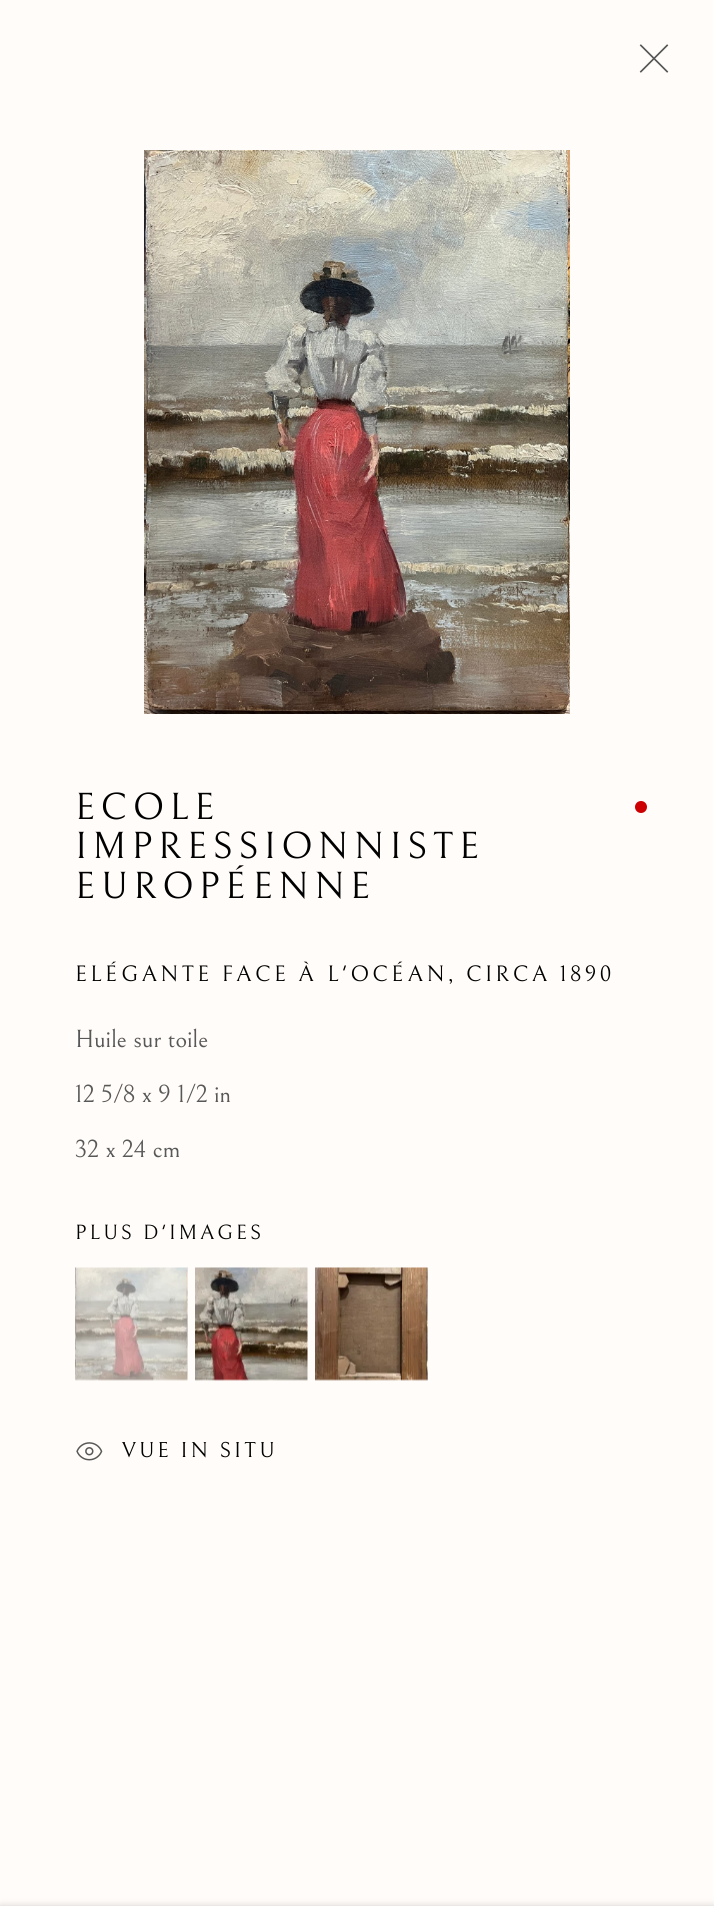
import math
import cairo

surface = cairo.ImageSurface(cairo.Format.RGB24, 714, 1906)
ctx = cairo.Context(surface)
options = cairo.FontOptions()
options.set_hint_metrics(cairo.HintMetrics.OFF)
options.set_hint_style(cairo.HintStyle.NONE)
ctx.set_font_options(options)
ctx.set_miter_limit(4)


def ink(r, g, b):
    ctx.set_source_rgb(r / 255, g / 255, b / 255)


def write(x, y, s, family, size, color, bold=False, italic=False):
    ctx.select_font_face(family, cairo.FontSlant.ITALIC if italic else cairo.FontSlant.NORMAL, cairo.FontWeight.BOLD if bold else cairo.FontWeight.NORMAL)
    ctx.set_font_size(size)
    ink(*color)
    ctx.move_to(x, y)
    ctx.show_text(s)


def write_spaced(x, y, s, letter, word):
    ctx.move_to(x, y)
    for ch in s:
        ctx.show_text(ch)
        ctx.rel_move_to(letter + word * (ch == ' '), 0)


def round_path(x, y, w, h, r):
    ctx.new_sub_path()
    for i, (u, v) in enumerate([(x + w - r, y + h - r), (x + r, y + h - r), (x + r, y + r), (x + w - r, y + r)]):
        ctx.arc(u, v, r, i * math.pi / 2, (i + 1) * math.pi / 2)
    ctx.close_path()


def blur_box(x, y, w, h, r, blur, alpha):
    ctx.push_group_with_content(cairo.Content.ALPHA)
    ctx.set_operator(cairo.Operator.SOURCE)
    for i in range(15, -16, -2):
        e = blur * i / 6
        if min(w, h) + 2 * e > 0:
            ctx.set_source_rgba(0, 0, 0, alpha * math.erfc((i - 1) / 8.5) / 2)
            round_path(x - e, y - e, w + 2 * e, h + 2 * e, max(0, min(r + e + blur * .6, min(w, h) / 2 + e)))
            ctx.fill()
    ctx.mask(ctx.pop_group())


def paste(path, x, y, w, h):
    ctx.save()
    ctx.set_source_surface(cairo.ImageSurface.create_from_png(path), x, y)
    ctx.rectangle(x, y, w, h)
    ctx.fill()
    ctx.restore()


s1 = dict(family="Bellefair", size=22.75, color=(88, 88, 88))

ink(255, 252, 249)
ctx.paint()
paste("pic1.png", 639, 44, 30, 29)
paste("pic2.png", 144, 150, 426, 564)
ctx.select_font_face("Bellefair")
ctx.set_font_size(34.6)
ink(1, 1, 1)
write_spaced(75, 819, "ECOLE", 5.5, 0)
write_spaced(75, 858, "IMPRESSIONNISTE", 5.5, 0)
write_spaced(75, 898, "EUROPÉENNE", 5.5, 0)
ink(204, 0, 0)
ctx.new_path()
ctx.arc(641, 807, 6, 0, 2 * math.pi)
ctx.fill()
ctx.set_font_size(20.5)
ink(1, 1, 1)
write_spaced(75, 981, "ELÉGANTE FACE À L'OCÉAN, CIRCA 1890", 3.3, 0)
write(75, 1047, "Huile sur toile", **s1)
write(75, 1102, "12 5/8 x 9 1/2 in", **s1)
write(75, 1157, "32 x 24 cm", **s1)
ctx.set_font_size(18.9)
ink(1, 1, 1)
write_spaced(75, 1239, "PLUS D'IMAGES", 3, 0)
paste("pic3.png", 75, 1267, 113, 114)
paste("pic4.png", 195, 1267, 113, 114)
paste("pic5.png", 315, 1267, 113, 114)
paste("pic6.png", 76, 1442, 27, 19)
ctx.set_font_size(19.75)
write_spaced(122, 1457, "VUE IN SITU", 3.1, 0)
ink(0, 0, 0)
blur_box(0, 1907, 714, 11, 0, 4, 0.23)
surface.write_to_png("screenshot.png")
